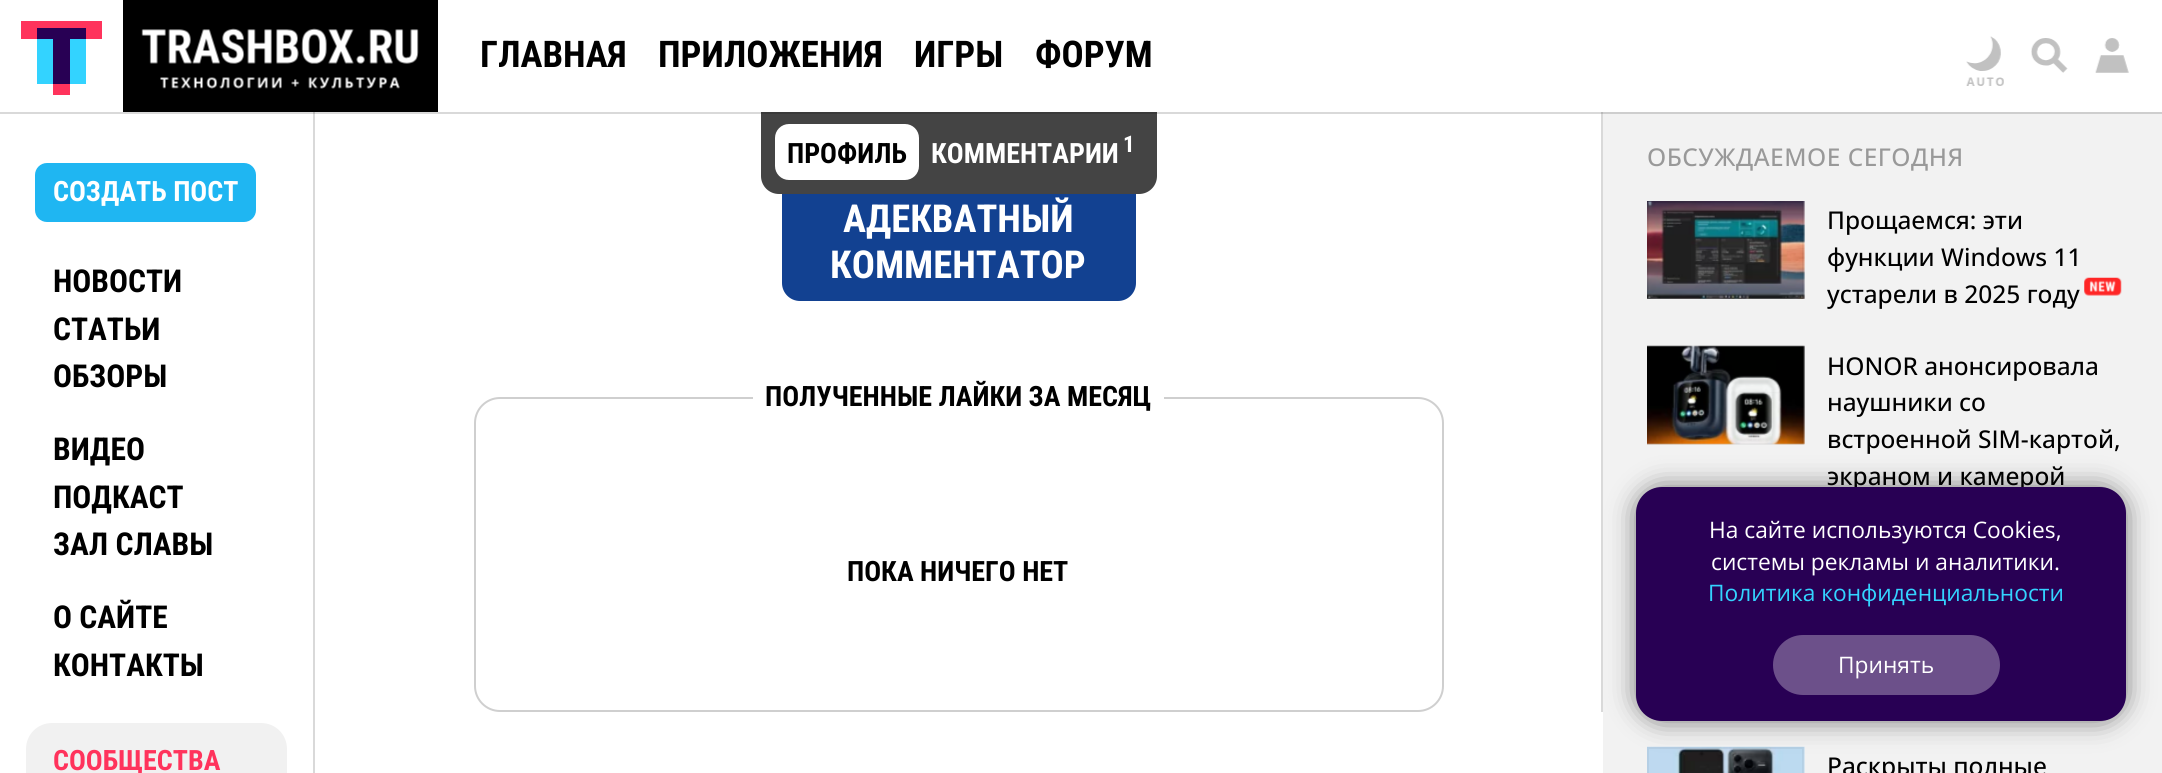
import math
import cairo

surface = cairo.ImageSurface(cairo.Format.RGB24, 2162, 773)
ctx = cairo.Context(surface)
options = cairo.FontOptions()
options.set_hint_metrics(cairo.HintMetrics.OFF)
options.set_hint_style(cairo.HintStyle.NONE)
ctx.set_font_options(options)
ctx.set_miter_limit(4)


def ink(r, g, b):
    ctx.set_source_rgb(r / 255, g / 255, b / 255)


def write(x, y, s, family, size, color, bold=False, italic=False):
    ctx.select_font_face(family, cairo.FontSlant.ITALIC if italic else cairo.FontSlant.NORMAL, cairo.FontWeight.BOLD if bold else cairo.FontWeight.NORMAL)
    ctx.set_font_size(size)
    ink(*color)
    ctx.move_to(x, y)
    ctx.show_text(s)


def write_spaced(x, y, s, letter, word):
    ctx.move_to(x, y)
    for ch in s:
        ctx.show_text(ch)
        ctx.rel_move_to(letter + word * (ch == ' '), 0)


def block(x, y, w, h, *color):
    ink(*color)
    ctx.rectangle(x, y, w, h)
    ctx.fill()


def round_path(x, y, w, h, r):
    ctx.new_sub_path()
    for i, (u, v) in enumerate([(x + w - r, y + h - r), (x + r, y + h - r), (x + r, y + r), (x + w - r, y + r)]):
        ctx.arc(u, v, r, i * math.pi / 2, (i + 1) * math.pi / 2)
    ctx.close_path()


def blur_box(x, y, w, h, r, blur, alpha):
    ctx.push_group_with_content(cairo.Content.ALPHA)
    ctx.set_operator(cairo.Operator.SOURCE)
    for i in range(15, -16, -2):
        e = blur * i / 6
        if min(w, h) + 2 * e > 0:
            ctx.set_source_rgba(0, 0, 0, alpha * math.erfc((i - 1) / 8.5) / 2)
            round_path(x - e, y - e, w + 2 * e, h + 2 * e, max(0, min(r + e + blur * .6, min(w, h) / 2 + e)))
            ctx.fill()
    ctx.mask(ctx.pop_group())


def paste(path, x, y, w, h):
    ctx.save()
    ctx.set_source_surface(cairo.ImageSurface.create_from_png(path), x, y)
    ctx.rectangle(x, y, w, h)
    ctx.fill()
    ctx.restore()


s1 = dict(family="Roboto Condensed", size=36.75, color=(0, 0, 0), bold=True)
s2 = dict(family="Roboto Condensed", size=28, color=(0, 0, 0), bold=True)
s3 = dict(family="Roboto Condensed", size=28, color=(255, 255, 255), bold=True)
s4 = dict(family="Roboto Condensed", size=23, color=(255, 255, 255), bold=True)
s5 = dict(family="Roboto Condensed", size=31.5, color=(0, 0, 0), bold=True)
s6 = dict(family="Roboto Condensed", size=28, color=(255, 51, 92), bold=True)
s7 = dict(family="Roboto Condensed", size=38.5, color=(255, 255, 255), bold=True)
s8 = dict(family="Open Sans Medium", size=24.5, color=(0, 0, 0))
s9 = dict(family="Open Sans", size=22.75, color=(255, 255, 255))
s10 = dict(family="Open Sans", size=22.75, color=(51, 211, 255))

ink(255, 255, 255)
ctx.paint()
ink(18, 65, 145)
round_path(782, 175, 354, 126, 18)
ctx.fill()
ink(68, 68, 68)
ctx.new_path()
ctx.move_to(761, 110)
ctx.line_to(1157, 110)
ctx.line_to(1157, 176)
ctx.curve_to(1157, 186, 1149, 194, 1139, 194)
ctx.line_to(779, 194)
ctx.curve_to(769, 194, 761, 186, 761, 176)
ctx.close_path()
ctx.fill()
block(761, 110, 396, 2, 255, 255, 255)
block(21, 21, 81, 18, 255, 51, 92)
block(37, 28, 49, 11, 40, 0, 84)
block(53, 39, 17, 56, 255, 51, 92)
block(37, 39, 49, 45, 51, 211, 255)
block(53, 39, 17, 45, 40, 0, 84)
block(123, 0, 315, 112, 0, 0, 0)
paste("pic1.png", 141, 28, 278, 61)
write(480, 67, "ГЛАВНАЯ", **s1)
write(658, 67, "ПРИЛОЖЕНИЯ", **s1)
write(914, 67, "ИГРЫ", **s1)
write(1035, 67, "ФОРУМ", **s1)
paste("pic2.png", 1966, 36, 38, 50)
paste("pic3.png", 2031, 38, 37, 35)
paste("pic4.png", 2095, 38, 34, 35)
block(313, 112, 2, 661, 217, 217, 217)
block(1601, 112, 2, 600, 217, 217, 217)
block(1603, 112, 559, 661, 242, 242, 242)
ctx.set_source_rgba(0, 0, 0, 0.15)
ctx.rectangle(0, 112, 2162, 2)
ctx.fill()
ink(255, 255, 255)
round_path(775, 124, 144, 56, 14)
ctx.fill()
write(787, 163, "ПРОФИЛЬ", **s2)
write(931, 163, "КОММЕНТАРИИ", **s3)
write(1123, 152, "1", **s4)
ink(31, 182, 242)
round_path(35, 163, 221, 59, 12)
ctx.fill()
write(53, 201, "СОЗДАТЬ ПОСТ", **s3)
write(53, 292, "НОВОСТИ", **s5)
write(53, 340, "СТАТЬИ", **s5)
write(53, 387, "ОБЗОРЫ", **s5)
write(53, 460, "ВИДЕО", **s5)
write(53, 508, "ПОДКАСТ", **s5)
write(53, 555, "ЗАЛ СЛАВЫ", **s5)
write(53, 628, "О САЙТЕ", **s5)
write(53, 676, "КОНТАКТЫ", **s5)
ink(241, 241, 241)
ctx.new_path()
ctx.move_to(52, 723)
ctx.line_to(261, 723)
ctx.curve_to(275.5, 723, 287, 734.5, 287, 749)
ctx.line_to(287, 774)
ctx.line_to(26, 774)
ctx.line_to(26, 749)
ctx.curve_to(26, 734.5, 37.5, 723, 52, 723)
ctx.close_path()
ctx.fill()
write(53, 770, "СООБЩЕСТВА", **s6)
write(843, 232, "АДЕКВАТНЫЙ", **s7)
write(830, 278, "КОММЕНТАТОР", **s7)
round_path(475, 398, 968, 313, 25)
ink(207, 207, 207)
ctx.stroke()
block(753, 397, 411, 2, 255, 255, 255)
write(765, 406, "ПОЛУЧЕННЫЕ ЛАЙКИ ЗА МЕСЯЦ", **s2)
write(847, 581, "ПОКА НИЧЕГО НЕТ", **s2)
ctx.select_font_face("Open Sans Medium")
ctx.set_font_size(24.5)
ink(153, 153, 153)
write_spaced(1647, 166, "ОБСУЖДАЕМОЕ СЕГОДНЯ", 0.5, 0)
paste("pic5.png", 1647, 201, 158, 98)
ctx.rectangle(1648, 202, 155, 96)
ctx.set_source_rgba(0, 0, 0, 0.05)
ctx.stroke()
write(1827, 229, "Прощаемся: эти", **s8)
write(1827, 266, "функции Windows 11", **s8)
write(1827, 303, "устарели в 2025 году", **s8)
paste("pic6.png", 2084, 277, 38, 19)
paste("pic7.png", 1647, 345, 158, 100)
ctx.rectangle(1648, 348, 155, 96)
ctx.set_source_rgba(0, 0, 0, 0.05)
ctx.stroke()
write(1827, 375, "HONOR анонсировала", **s8)
write(1827, 411, "наушники со", **s8)
write(1827, 448, "встроенной SIM-картой,", **s8)
write(1827, 485, "экраном и камерой", **s8)
paste("pic8.png", 1647, 746, 158, 27)
ctx.rectangle(1648, 748, 155, 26)
ctx.set_source_rgba(0, 0, 0, 0.05)
ctx.stroke()
write(1827, 775, "Раскрыты полные", **s8)
ink(0, 0, 0)
blur_box(1636, 487, 490, 234, 26, 13, 0.5)
ink(40, 0, 84)
round_path(1636, 487, 490, 234, 26)
ctx.fill()
write(1709, 538, "На сайте используются Cookies,", **s9)
write(1711, 570, "системы рекламы и аналитики.", **s9)
write(1708, 601, "Политика конфиденциальности", **s10)
ink(108, 80, 138)
round_path(1773, 635, 227, 60, 30)
ctx.fill()
write(1838, 673, "Принять", **s9)
surface.write_to_png("screenshot.png")
